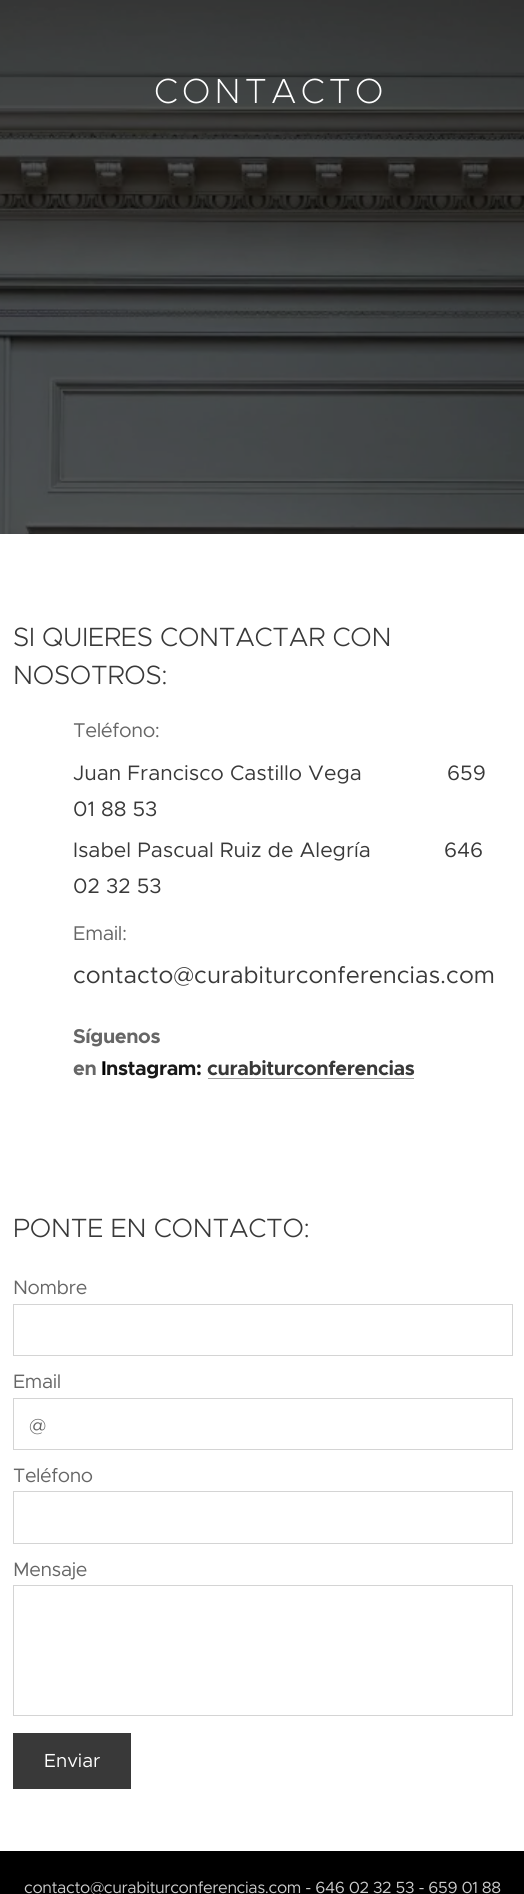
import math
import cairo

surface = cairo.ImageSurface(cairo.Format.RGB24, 524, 1894)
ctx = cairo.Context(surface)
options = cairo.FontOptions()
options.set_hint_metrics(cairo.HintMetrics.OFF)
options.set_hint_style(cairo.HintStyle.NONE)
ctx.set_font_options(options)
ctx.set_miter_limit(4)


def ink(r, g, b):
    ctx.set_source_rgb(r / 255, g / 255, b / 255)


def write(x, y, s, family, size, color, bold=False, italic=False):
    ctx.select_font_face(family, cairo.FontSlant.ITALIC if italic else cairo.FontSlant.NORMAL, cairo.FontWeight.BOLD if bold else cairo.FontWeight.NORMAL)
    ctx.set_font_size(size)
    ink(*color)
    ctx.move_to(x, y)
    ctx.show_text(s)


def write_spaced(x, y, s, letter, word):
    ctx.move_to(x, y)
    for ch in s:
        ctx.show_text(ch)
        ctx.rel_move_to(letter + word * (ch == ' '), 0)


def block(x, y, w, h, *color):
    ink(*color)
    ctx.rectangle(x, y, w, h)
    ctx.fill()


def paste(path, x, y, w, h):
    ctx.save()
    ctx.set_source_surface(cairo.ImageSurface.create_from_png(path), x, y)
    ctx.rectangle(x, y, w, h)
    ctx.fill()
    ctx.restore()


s1 = dict(family="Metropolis", size=21, color=(57, 57, 57))
s2 = dict(family="Metropolis", size=23.6, color=(57, 57, 57))
s3 = dict(family="Metropolis", size=19.5, color=(102, 102, 102))
s4 = dict(family="Metropolis", size=19, color=(255, 255, 255))

ink(255, 255, 255)
ctx.paint()
paste("pic1.png", 0, 0, 524, 534)
ctx.select_font_face("Metropolis ExtraLight")
ctx.set_font_size(35)
ink(255, 255, 255)
write_spaced(154, 103, "CONTACTO", 4.25, 0)
ctx.select_font_face("Metropolis Light")
ctx.set_font_size(26.5)
ink(57, 57, 57)
write_spaced(13, 646, "SI QUIERES CONTACTAR CON", -0.25, 0)
write_spaced(13, 684, "NOSOTROS:", -0.25, 0)
ctx.select_font_face("Metropolis")
ctx.set_font_size(20)
ink(102, 102, 102)
write_spaced(73, 737, "Teléfono:", -0.4, 0)
write(73, 780, "Juan Francisco Castillo Vega              659", **s1)
write(73, 816, "01 88 53", **s1)
write(73, 857, "Isabel Pascual Ruiz de Alegría            646", **s1)
write(73, 893, "02 32 53", **s1)
ctx.set_font_size(20)
ink(102, 102, 102)
write_spaced(73, 940, "Email:", -0.4, 0)
write(73, 983, "contacto@curabiturconferencias.com", **s2)
ctx.select_font_face("Metropolis", cairo.FontSlant.NORMAL, cairo.FontWeight.BOLD)
ctx.set_font_size(20)
ink(102, 102, 102)
write_spaced(73, 1043, "Síguenos", -0.4, 0)
write_spaced(73, 1075, "en", -0.4, 0)
ink(0, 0, 0)
write_spaced(101, 1075, "I", -0.4, 0)
ink(25, 25, 25)
write_spaced(106, 1075, "nstagram:", -0.4, 0)
ink(57, 57, 57)
write_spaced(207, 1075, "curabiturconferencias", -0.4, 0)
block(208, 1078, 206, 1, 156, 156, 156)
ctx.select_font_face("Metropolis Light")
ctx.set_font_size(26.5)
ink(57, 57, 57)
write_spaced(13, 1237, "PONTE EN CONTACTO:", -0.25, 0)
ctx.select_font_face("Metropolis")
ctx.set_font_size(19.5)
ink(102, 102, 102)
write_spaced(13, 1294, "Nombre", -0.4, 0)
ctx.rectangle(13.5, 1304.5, 499, 51)
ink(212, 212, 212)
ctx.set_line_width(1)
ctx.stroke()
ink(102, 102, 102)
write_spaced(13, 1388, "Email", -0.4, 0)
ctx.rectangle(13.5, 1398.5, 499, 51)
ink(212, 212, 212)
ctx.stroke()
write(29, 1432, "@", **s3)
write_spaced(13, 1482, "Teléfono", -0.4, 0)
ctx.rectangle(13.5, 1491.5, 499, 52)
ink(212, 212, 212)
ctx.stroke()
ink(102, 102, 102)
write_spaced(13, 1576, "Mensaje", -0.4, 0)
ctx.rectangle(13.5, 1585.5, 499, 130)
ink(212, 212, 212)
ctx.stroke()
block(13, 1733, 118, 56, 57, 57, 57)
write(44, 1767, "Enviar", **s4)
block(0, 1851, 524, 43, 0, 0, 0)
ctx.set_font_size(16.25)
ink(204, 204, 204)
write_spaced(24, 1893, "contacto@curabiturconferencias.com - 646 02 32 53 - 659 01 88", -0.4, 0)
surface.write_to_png("screenshot.png")
